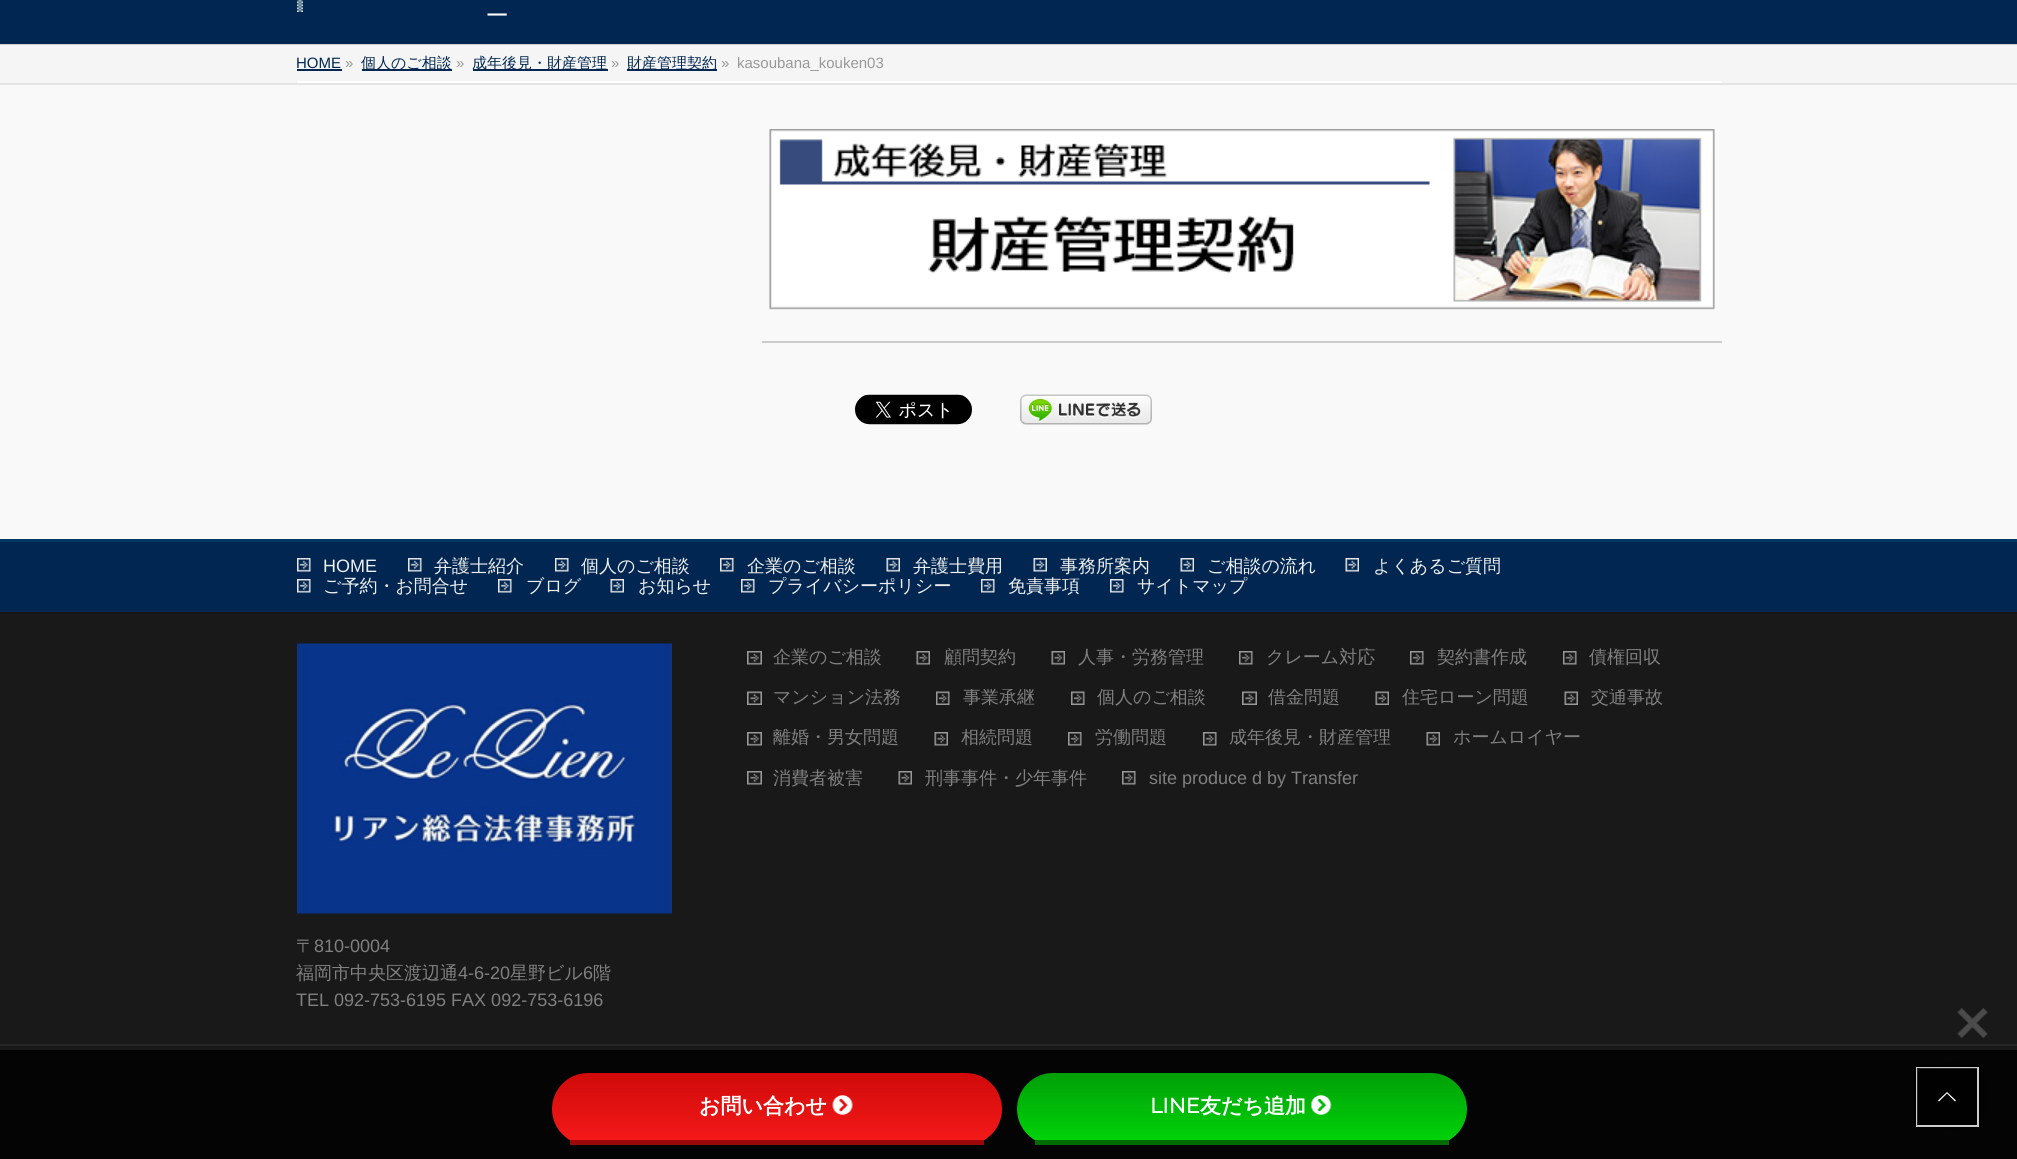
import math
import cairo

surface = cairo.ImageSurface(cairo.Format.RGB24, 2017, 1159)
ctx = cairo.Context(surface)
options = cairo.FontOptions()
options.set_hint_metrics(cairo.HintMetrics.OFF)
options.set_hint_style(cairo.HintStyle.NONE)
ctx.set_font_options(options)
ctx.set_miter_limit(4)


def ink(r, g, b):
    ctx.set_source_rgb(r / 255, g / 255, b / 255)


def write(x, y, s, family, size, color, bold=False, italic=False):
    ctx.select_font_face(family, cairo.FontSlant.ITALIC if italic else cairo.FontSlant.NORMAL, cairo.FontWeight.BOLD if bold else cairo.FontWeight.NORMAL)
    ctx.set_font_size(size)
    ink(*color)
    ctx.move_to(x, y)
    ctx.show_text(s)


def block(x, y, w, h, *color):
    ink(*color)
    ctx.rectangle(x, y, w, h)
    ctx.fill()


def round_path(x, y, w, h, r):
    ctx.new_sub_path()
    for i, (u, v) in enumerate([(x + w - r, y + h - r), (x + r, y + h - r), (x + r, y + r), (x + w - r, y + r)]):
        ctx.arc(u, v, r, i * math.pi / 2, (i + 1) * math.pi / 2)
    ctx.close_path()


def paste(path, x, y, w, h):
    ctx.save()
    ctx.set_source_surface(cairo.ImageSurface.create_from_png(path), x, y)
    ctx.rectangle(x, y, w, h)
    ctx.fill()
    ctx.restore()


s1 = dict(family="Liberation Sans", size=33, color=(255, 255, 255))
s2 = dict(family="Liberation Sans", size=15, color=(0, 38, 81))
s3 = dict(family="Liberation Sans", size=15, color=(153, 153, 153))
s4 = dict(family="WenQuanYi Zen Hei Medium", size=15, color=(0, 38, 81))
s5 = dict(family="Liberation Sans", size=18, color=(239, 239, 239))
s6 = dict(family="WenQuanYi Zen Hei Medium", size=18, color=(239, 239, 239))
s7 = dict(family="WenQuanYi Zen Hei Medium", size=18, color=(128, 128, 128))
s8 = dict(family="Liberation Sans", size=18, color=(128, 128, 128))
s9 = dict(family="WenQuanYi Zen Hei", size=21, color=(255, 255, 255), bold=True)
s10 = dict(family="Montserrat", size=21, color=(255, 255, 255), bold=True)

ink(249, 249, 249)
ctx.paint()
block(0, 0, 2017, 44, 0, 38, 81)
block(0, 44, 2017, 1, 204, 204, 204)
paste("pic1.png", 297, 0, 6, 12)
write(488, 9, "_", **s1)
block(0, 45, 2017, 38, 245, 245, 245)
block(0, 83, 2017, 2, 229, 229, 229)
block(297, 81, 1425, 2, 255, 255, 255)
write(296, 68, "HOME", **s2)
block(297, 69, 45, 2, 0, 38, 81)
write(345, 68, "»", **s3)
block(362, 69, 90, 2, 0, 38, 81)
write(361, 68, "個人のご相談", **s4)
write(456, 68, "»", **s3)
block(473, 69, 135, 2, 0, 38, 81)
write(472, 68, "成年後見・財産管理", **s4)
write(611, 68, "»", **s3)
block(627, 69, 90, 2, 0, 38, 81)
write(627, 68, "財産管理契約", **s4)
write(721, 68, "»", **s3)
write(737, 68, "kasoubana_kouken03", **s3)
paste("pic2.png", 769, 129, 946, 181)
block(762, 341, 960, 2, 204, 204, 204)
paste("pic3.png", 855, 394, 117, 31)
paste("pic4.png", 1020, 394, 132, 31)
block(0, 542, 2017, 70, 0, 38, 81)
block(0, 539, 2017, 3, 2, 54, 99)
paste("pic5.png", 297, 558, 14, 14)
write(323, 572, "HOME", **s5)
paste("pic5.png", 408, 558, 14, 14)
write(434, 572, "弁護士紹介", **s6)
paste("pic6.png", 555, 558, 14, 14)
write(581, 572, "個人のご相談", **s6)
paste("pic5.png", 720, 558, 14, 14)
write(747, 572, "企業のご相談", **s6)
paste("pic7.png", 886, 558, 14, 14)
write(913, 572, "弁護士費用", **s6)
paste("pic7.png", 1033, 558, 14, 14)
write(1060, 572, "事務所案内", **s6)
paste("pic8.png", 1180, 558, 14, 14)
write(1207, 572, "ご相談の流れ", **s6)
paste("pic8.png", 1345, 558, 14, 14)
write(1373, 572, "よくあるご質問", **s6)
paste("pic5.png", 297, 579, 14, 14)
write(323, 592, "ご予約・お問合せ", **s6)
paste("pic5.png", 498, 579, 14, 14)
write(526, 592, "ブログ", **s6)
paste("pic8.png", 610, 579, 14, 14)
write(638, 592, "お知らせ", **s6)
paste("pic5.png", 741, 579, 14, 14)
write(768, 592, "プライバシーポリシー", **s6)
paste("pic6.png", 981, 579, 14, 14)
write(1008, 592, "免責事項", **s6)
paste("pic5.png", 1110, 579, 14, 14)
write(1137, 592, "サイトマップ", **s6)
block(0, 614, 2017, 430, 25, 25, 25)
block(0, 612, 2017, 2, 21, 21, 21)
paste("pic9.png", 747, 651, 15, 14)
write(773, 663, "企業のご相談", **s7)
paste("pic10.png", 916, 651, 14, 14)
write(944, 663, "顧問契約", **s7)
paste("pic11.png", 1051, 651, 14, 14)
write(1078, 663, "人事・労務管理", **s7)
paste("pic12.png", 1239, 651, 14, 14)
write(1266, 663, "クレーム対応", **s7)
paste("pic13.png", 1410, 651, 14, 14)
write(1437, 663, "契約書作成", **s7)
paste("pic13.png", 1563, 651, 14, 14)
write(1589, 663, "債権回収", **s7)
paste("pic14.png", 747, 691, 15, 14)
ctx.save()
ctx.rectangle(747, 689, 185, 27)
ctx.clip()
write(773, 703, "マンション法務", **s7)
ctx.restore()
paste("pic15.png", 936, 691, 14, 14)
ctx.save()
ctx.rectangle(936, 689, 129, 27)
ctx.clip()
write(963, 703, "事業承継", **s7)
ctx.restore()
paste("pic16.png", 1071, 691, 14, 14)
ctx.save()
ctx.rectangle(1071, 689, 165, 27)
ctx.clip()
write(1097, 703, "個人のご相談", **s7)
ctx.restore()
paste("pic14.png", 1242, 691, 15, 14)
ctx.save()
ctx.rectangle(1242, 689, 129, 27)
ctx.clip()
write(1268, 703, "借金問題", **s7)
ctx.restore()
paste("pic17.png", 1375, 691, 14, 14)
ctx.save()
ctx.rectangle(1376, 689, 183, 27)
ctx.clip()
write(1402, 703, "住宅ローン問題", **s7)
ctx.restore()
paste("pic18.png", 1564, 691, 14, 14)
ctx.save()
ctx.rectangle(1565, 689, 129, 27)
ctx.clip()
write(1591, 703, "交通事故", **s7)
ctx.restore()
paste("pic9.png", 747, 732, 15, 14)
ctx.save()
ctx.rectangle(747, 729, 183, 26)
ctx.clip()
write(773, 743, "離婚・男女問題", **s7)
ctx.restore()
paste("pic10.png", 934, 732, 14, 14)
ctx.save()
ctx.rectangle(935, 729, 129, 26)
ctx.clip()
write(961, 743, "相続問題", **s7)
ctx.restore()
paste("pic12.png", 1068, 732, 14, 14)
ctx.save()
ctx.rectangle(1068, 729, 129, 26)
ctx.clip()
write(1095, 743, "労働問題", **s7)
ctx.restore()
paste("pic12.png", 1203, 732, 14, 14)
ctx.save()
ctx.rectangle(1203, 729, 219, 26)
ctx.clip()
write(1229, 743, "成年後見・財産管理", **s7)
ctx.restore()
paste("pic11.png", 1426, 732, 14, 14)
write(1453, 743, "ホームロイヤー", **s7)
paste("pic9.png", 747, 771, 15, 14)
write(773, 784, "消費者被害", **s7)
paste("pic10.png", 898, 771, 14, 14)
write(925, 784, "刑事事件・少年事件", **s7)
paste("pic12.png", 1122, 771, 14, 14)
write(1149, 784, "site produce d by Transfer", **s8)
paste("pic19.png", 297, 643, 375, 271)
write(296, 952, "〒", **s7)
write(314, 952, "810-0004", **s8)
write(296, 979, "福岡市中央区渡辺通", **s7)
write(458, 979, "4-6-20", **s8)
write(510, 979, "星野ビル", **s7)
write(583, 979, "6", **s8)
write(593, 979, "階", **s7)
write(296, 1006, "TEL 092-753-6195 FAX 092-753-6196", **s8)
block(0, 1046, 2017, 4, 25, 25, 25)
block(0, 1050, 2017, 109, 4, 4, 4)
block(0, 1044, 2017, 2, 38, 38, 38)
paste("pic20.png", 1920, 1062, 68, 68)
paste("pic21.png", 1957, 1008, 31, 30)
ctx.save()
round_path(552, 1073, 450, 72, 36)
ctx.clip()
gradient = cairo.LinearGradient(777, 1073, 777, 1140)
gradient.add_color_stop_rgba(0, 0.816, 0.039, 0.039, 1)
gradient.add_color_stop_rgba(1, 0.957, 0.098, 0.098, 1)
ctx.set_source(gradient)
ctx.new_path()
ctx.move_to(588, 1073)
ctx.line_to(966, 1073)
ctx.curve_to(986, 1073, 1002, 1089, 1002, 1109)
ctx.line_to(1002, 1140)
ctx.line_to(552, 1140)
ctx.line_to(552, 1109)
ctx.curve_to(552, 1089, 568, 1073, 588, 1073)
ctx.close_path()
ctx.fill()
ctx.restore()
block(570, 1140, 414, 5, 159, 8, 8)
write(699, 1113, "お問い合わせ", **s9)
paste("pic22.png", 832, 1095, 21, 20)
ctx.save()
round_path(1017, 1073, 450, 72, 36)
ctx.clip()
gradient = cairo.LinearGradient(1242, 1073, 1242, 1140)
gradient.add_color_stop_rgba(0, 0, 0.624, 0.027, 1)
gradient.add_color_stop_rgba(1, 0, 0.824, 0.035, 1)
ctx.set_source(gradient)
ctx.new_path()
ctx.move_to(1053, 1073)
ctx.line_to(1431, 1073)
ctx.curve_to(1451, 1073, 1467, 1089, 1467, 1109)
ctx.line_to(1467, 1140)
ctx.line_to(1017, 1140)
ctx.line_to(1017, 1109)
ctx.curve_to(1017, 1089, 1033, 1073, 1053, 1073)
ctx.close_path()
ctx.fill()
ctx.restore()
block(1035, 1140, 414, 5, 0, 108, 5)
write(1150, 1113, "LINE", **s10)
write(1200, 1113, "友だち追加", **s9)
paste("pic23.png", 1310, 1095, 22, 20)
ctx.rectangle(1915.5, 1066.5, 63, 60)
ink(1, 1, 1)
ctx.set_line_width(3)
ctx.stroke()
ctx.rectangle(1917, 1068, 61, 58)
ctx.set_source_rgba(1, 1, 1, 0.8)
ctx.set_line_width(2)
ctx.stroke()
ctx.set_source_rgba(0, 0, 0, 0.8)
ctx.rectangle(1917, 1068, 60, 57)
ctx.fill()
ink(255, 255, 255)
ctx.new_path()
ctx.move_to(1956, 1100.5)
ctx.line_to(1955, 1101.5)
ctx.line_to(1947, 1093.5)
ctx.line_to(1939, 1101.5)
ctx.line_to(1938, 1100.5)
ctx.line_to(1947, 1092)
ctx.close_path()
ctx.fill()
surface.write_to_png("screenshot.png")
